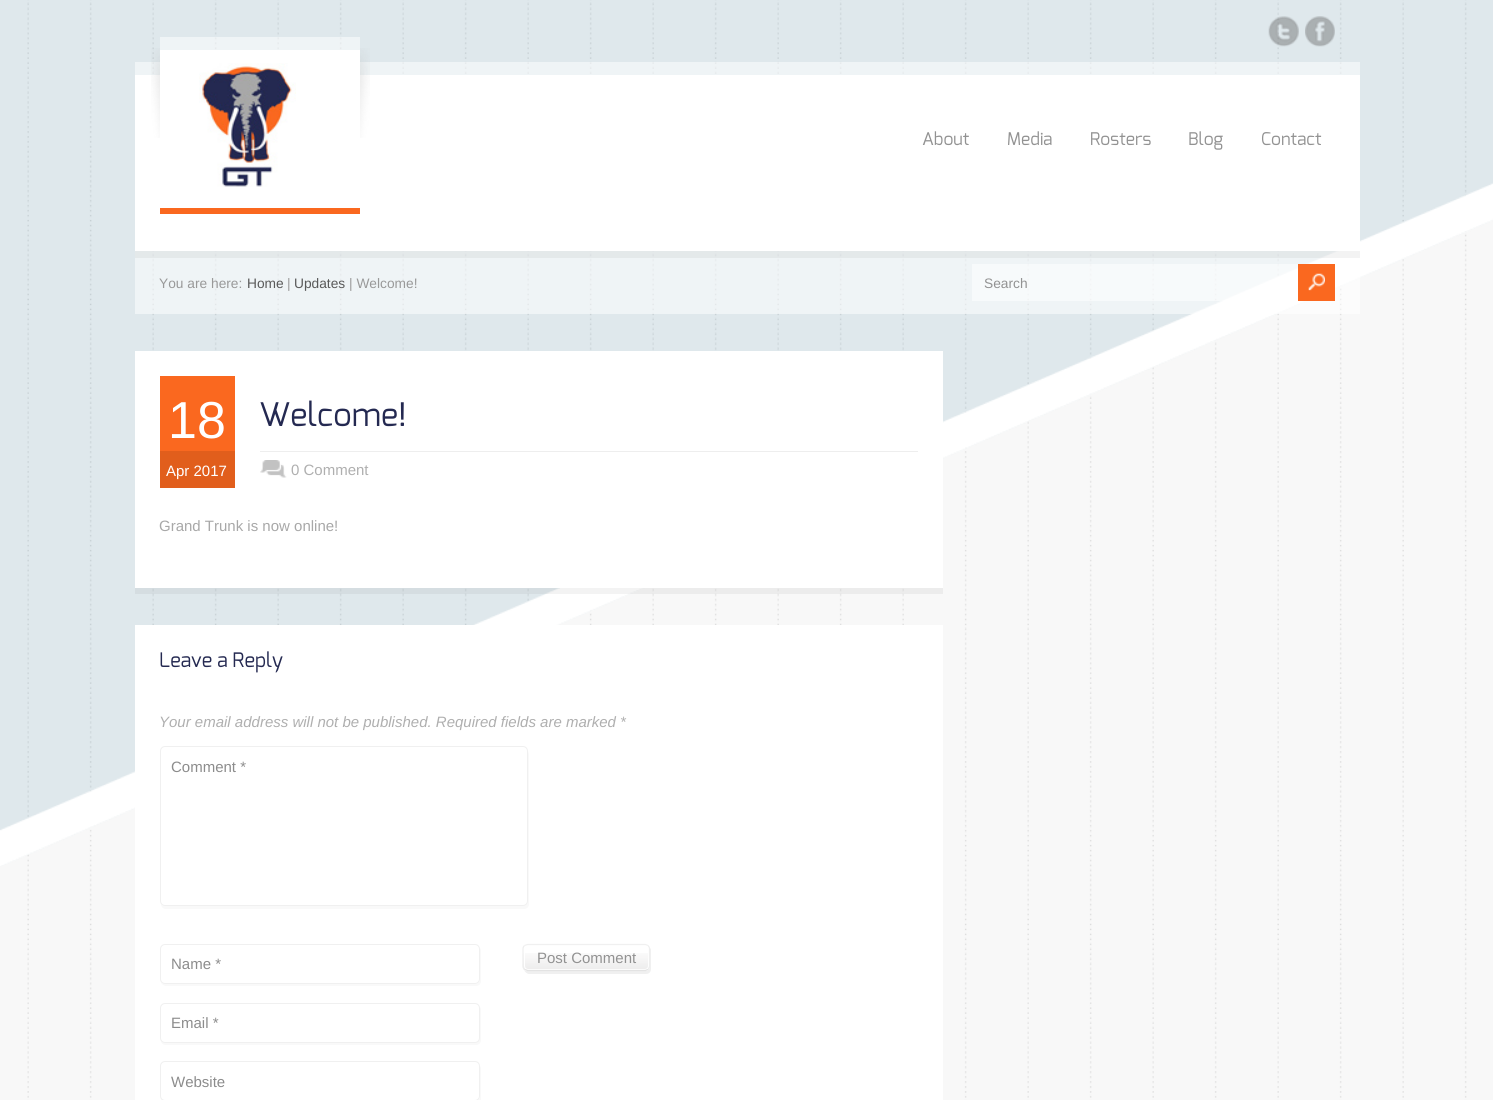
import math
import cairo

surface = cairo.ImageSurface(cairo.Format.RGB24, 1493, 1100)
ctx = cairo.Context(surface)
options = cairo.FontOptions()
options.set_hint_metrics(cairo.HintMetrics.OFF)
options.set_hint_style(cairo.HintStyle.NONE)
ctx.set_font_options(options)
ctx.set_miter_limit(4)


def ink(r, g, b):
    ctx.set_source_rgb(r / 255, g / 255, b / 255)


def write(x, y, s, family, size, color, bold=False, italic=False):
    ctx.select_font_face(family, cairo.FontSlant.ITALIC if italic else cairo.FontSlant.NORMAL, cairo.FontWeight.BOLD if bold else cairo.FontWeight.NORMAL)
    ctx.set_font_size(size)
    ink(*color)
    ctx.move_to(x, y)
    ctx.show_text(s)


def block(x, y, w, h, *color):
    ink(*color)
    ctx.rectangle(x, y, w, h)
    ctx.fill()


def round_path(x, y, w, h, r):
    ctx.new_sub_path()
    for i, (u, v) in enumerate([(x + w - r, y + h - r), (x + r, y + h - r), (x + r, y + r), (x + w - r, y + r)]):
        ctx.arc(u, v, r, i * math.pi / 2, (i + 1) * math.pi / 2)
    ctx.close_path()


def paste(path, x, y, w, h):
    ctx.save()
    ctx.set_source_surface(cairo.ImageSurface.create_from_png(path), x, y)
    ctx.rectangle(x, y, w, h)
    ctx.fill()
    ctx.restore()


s1 = dict(family="Exo", size=17.5, color=(146, 146, 146))
s2 = dict(family="Liberation Sans", size=13.75, color=(153, 153, 153))
s3 = dict(family="Liberation Sans", size=13.75, color=(89, 89, 89))
s4 = dict(family="Liberation Sans", size=13.75, color=(146, 146, 146))
s5 = dict(family="Liberation Sans", size=52, color=(255, 255, 255))
s6 = dict(family="Liberation Sans", size=15, color=(255, 255, 255))
s7 = dict(family="Exo", size=32.5, color=(36, 41, 81))
s8 = dict(family="Liberation Sans", size=15, color=(175, 175, 175))
s9 = dict(family="Liberation Sans", size=15, color=(168, 168, 168))
s10 = dict(family="Exo", size=20, color=(36, 41, 81))
s11 = dict(family="Liberation Sans", size=15, color=(175, 175, 175), italic=True)
s12 = dict(family="Liberation Sans", size=15, color=(140, 140, 140))
s13 = dict(family="Liberation Sans", size=15, color=(146, 146, 146))

ink(255, 255, 255)
ctx.paint()
paste("pic1.png", 0, 0, 1493, 1100)
paste("pic4.png", 0, 0, 1493, 866)
paste("pic2.png", 1268, 16, 31, 31)
paste("pic3.png", 1305, 16, 30, 31)
ctx.set_source_rgba(1, 1, 1, 0.5)
ctx.rectangle(135, 62, 1225, 13)
ctx.fill()
block(135, 75, 1225, 176, 255, 255, 255)
paste("pic5.png", 151, 48, 9, 90)
block(160, 208, 200, 6, 250, 104, 31)
ctx.set_source_rgba(1, 1, 1, 0.5)
ctx.rectangle(160, 37, 200, 13)
ctx.fill()
block(160, 50, 200, 25, 255, 255, 255)
paste("pic6.png", 199, 63, 97, 124)
paste("pic7.png", 360, 48, 10, 90)
write(922, 145, "About", **s1)
write(1007, 145, "Media", **s1)
write(1090, 145, "Rosters", **s1)
write(1188, 145, "Blog", **s1)
write(1261, 145, "Contact", **s1)
ctx.set_source_rgba(1, 1, 1, 0.5)
ctx.rectangle(135, 251, 1225, 63)
ctx.fill()
ctx.set_source_rgba(0, 0, 0, 0.05)
ctx.rectangle(135, 251, 1225, 7)
ctx.fill()
write(159, 288, "You are here:", **s2)
write(247, 288, "Home", **s3)
write(287, 288, "|", **s2)
write(294, 288, "Updates", **s3)
write(349, 288, "| Welcome!", **s2)
ctx.set_source_rgba(1, 1, 1, 0.5)
ctx.rectangle(972, 264, 326, 37)
ctx.fill()
write(984, 288, "Search", **s4)
block(1298, 264, 37, 37, 250, 104, 31)
paste("pic8.png", 1308, 273, 17, 18)
ctx.set_source_rgba(0, 0, 0, 0.05)
ctx.new_path()
ctx.move_to(135, 588)
ctx.line_to(135, 594)
ctx.line_to(943, 594)
ctx.line_to(943, 358)
ctx.line_to(942, 358)
ctx.line_to(942, 588)
ctx.close_path()
ctx.fill()
block(135, 351, 808, 237, 255, 255, 255)
block(160, 376, 75, 75, 250, 104, 31)
write(168, 438, "18", **s5)
block(160, 451, 75, 37, 225, 94, 28)
write(166, 476, "Apr 2017", **s6)
write(259, 426, "Welcome!", **s7)
block(260, 451, 658, 1, 238, 238, 238)
paste("pic9.png", 260, 460, 27, 18)
write(291, 475, "0 Comment", **s8)
write(159, 531, "Grand Trunk is now online!", **s9)
block(135, 625, 808, 475, 255, 255, 255)
write(159, 667, "Leave a Reply", **s10)
write(159, 727, "Your email address will not be published. Required fields are marked *", **s11)
ink(249, 249, 249)
ctx.new_path()
ctx.move_to(161, 904)
ctx.curve_to(161, 907, 163, 909, 166, 909)
ctx.line_to(524, 909)
ctx.curve_to(527, 909, 529, 907, 529, 904)
ctx.line_to(529, 754)
ctx.curve_to(529, 753, 528, 751, 527, 750)
ctx.line_to(528, 901)
ctx.curve_to(528, 904, 525, 906, 522, 906)
ctx.line_to(165, 906)
ctx.curve_to(163, 906, 162, 905, 161, 904)
ctx.close_path()
ctx.fill()
ink(255, 255, 255)
round_path(160.5, 746.5, 367, 159, 4.5)
ctx.fill_preserve()
ink(240, 240, 240)
ctx.set_line_width(1)
ctx.stroke()
write(171, 772, "Comment *", **s12)
ink(249, 249, 249)
ctx.new_path()
ctx.move_to(161, 982)
ctx.curve_to(161, 984, 164, 986, 166, 986)
ctx.line_to(476, 986)
ctx.curve_to(479, 986, 481, 984, 481, 981)
ctx.line_to(481, 951)
ctx.curve_to(481, 950, 481, 949, 480, 948)
ctx.line_to(480, 979)
ctx.curve_to(480, 982, 478, 984, 475, 984)
ctx.line_to(165, 984)
ctx.curve_to(163, 984, 162, 983, 161, 982)
ctx.close_path()
ctx.fill()
round_path(160.5, 944.5, 319, 39, 4.5)
ink(240, 240, 240)
ctx.stroke()
write(171, 969, "Name *", **s12)
ink(249, 249, 249)
ctx.new_path()
ctx.move_to(161, 1041)
ctx.curve_to(161, 1043, 163, 1045, 166, 1045)
ctx.line_to(476, 1045)
ctx.curve_to(479, 1045, 481, 1043, 481, 1040)
ctx.line_to(481, 1010)
ctx.curve_to(481, 1009, 481, 1008, 480, 1007)
ctx.line_to(480, 1038)
ctx.curve_to(480, 1040, 478, 1042, 475, 1042)
ctx.line_to(165, 1042)
ctx.curve_to(163, 1042, 162, 1042, 161, 1041)
ctx.close_path()
ctx.fill()
ink(255, 255, 255)
round_path(160.5, 1003.5, 319, 39, 4.5)
ctx.fill_preserve()
ink(240, 240, 240)
ctx.stroke()
write(171, 1028, "Email *", **s12)
ink(249, 249, 249)
ctx.new_path()
ctx.move_to(161, 1099)
ctx.curve_to(161, 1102, 163, 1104, 166, 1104)
ctx.line_to(476, 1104)
ctx.curve_to(479, 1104, 481, 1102, 481, 1099)
ctx.line_to(481, 1069)
ctx.curve_to(481, 1068, 481, 1067, 480, 1066)
ctx.line_to(480, 1096)
ctx.curve_to(480, 1099, 478, 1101, 475, 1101)
ctx.line_to(165, 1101)
ctx.curve_to(163, 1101, 162, 1100, 161, 1099)
ctx.close_path()
ctx.fill()
round_path(160.5, 1061.5, 319, 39, 4.5)
ink(240, 240, 240)
ctx.stroke()
write(171, 1087, "Website", **s12)
ink(240, 240, 240)
ctx.new_path()
ctx.move_to(524, 970)
ctx.curve_to(525, 972, 527, 974, 529, 974)
ctx.line_to(646, 974)
ctx.curve_to(649, 974, 651, 972, 651, 969)
ctx.line_to(651, 951)
ctx.curve_to(651, 950, 651, 949, 650, 948)
ctx.line_to(650, 966)
ctx.curve_to(650, 969, 648, 971, 645, 971)
ctx.line_to(528, 971)
ctx.curve_to(526, 971, 525, 971, 524, 970)
ctx.close_path()
ctx.fill()
ink(255, 255, 255)
round_path(523, 944, 127, 27, 5)
ctx.fill()
paste("pic10.png", 522, 953, 128, 17)
round_path(524.5, 945.5, 124, 24, 3.5)
ctx.stroke()
ctx.new_path()
ctx.move_to(524.5, 945.5)
ctx.line_to(527.5, 944.5)
ctx.line_to(645.5, 944.5)
ctx.line_to(648, 945.5)
ink(240, 240, 240)
ctx.set_line_width(1.2)
ctx.stroke()
ctx.new_path()
ctx.move_to(648, 945.5)
ctx.curve_to(649, 946.5, 649.5, 947.5, 649.5, 949)
ctx.line_to(649.5, 966)
ctx.curve_to(649.5, 967.5, 649, 968.5, 648, 969.5)
ink(238, 238, 238)
ctx.stroke()
ctx.new_path()
ctx.move_to(648, 969.5)
ctx.line_to(645.5, 970.5)
ctx.line_to(547, 970.5)
ctx.line_to(527.5, 970.5)
ctx.line_to(524.5, 969.5)
ink(227, 227, 227)
ctx.stroke()
ctx.new_path()
ctx.move_to(524.5, 969.5)
ctx.curve_to(523.5, 968.5, 523, 967.5, 523, 966)
ctx.line_to(523, 949)
ctx.curve_to(523, 947.5, 523.5, 946.5, 524.5, 945.5)
ink(238, 238, 238)
ctx.stroke()
write(537, 963, "Post Comment", **s13)
surface.write_to_png("screenshot.png")
